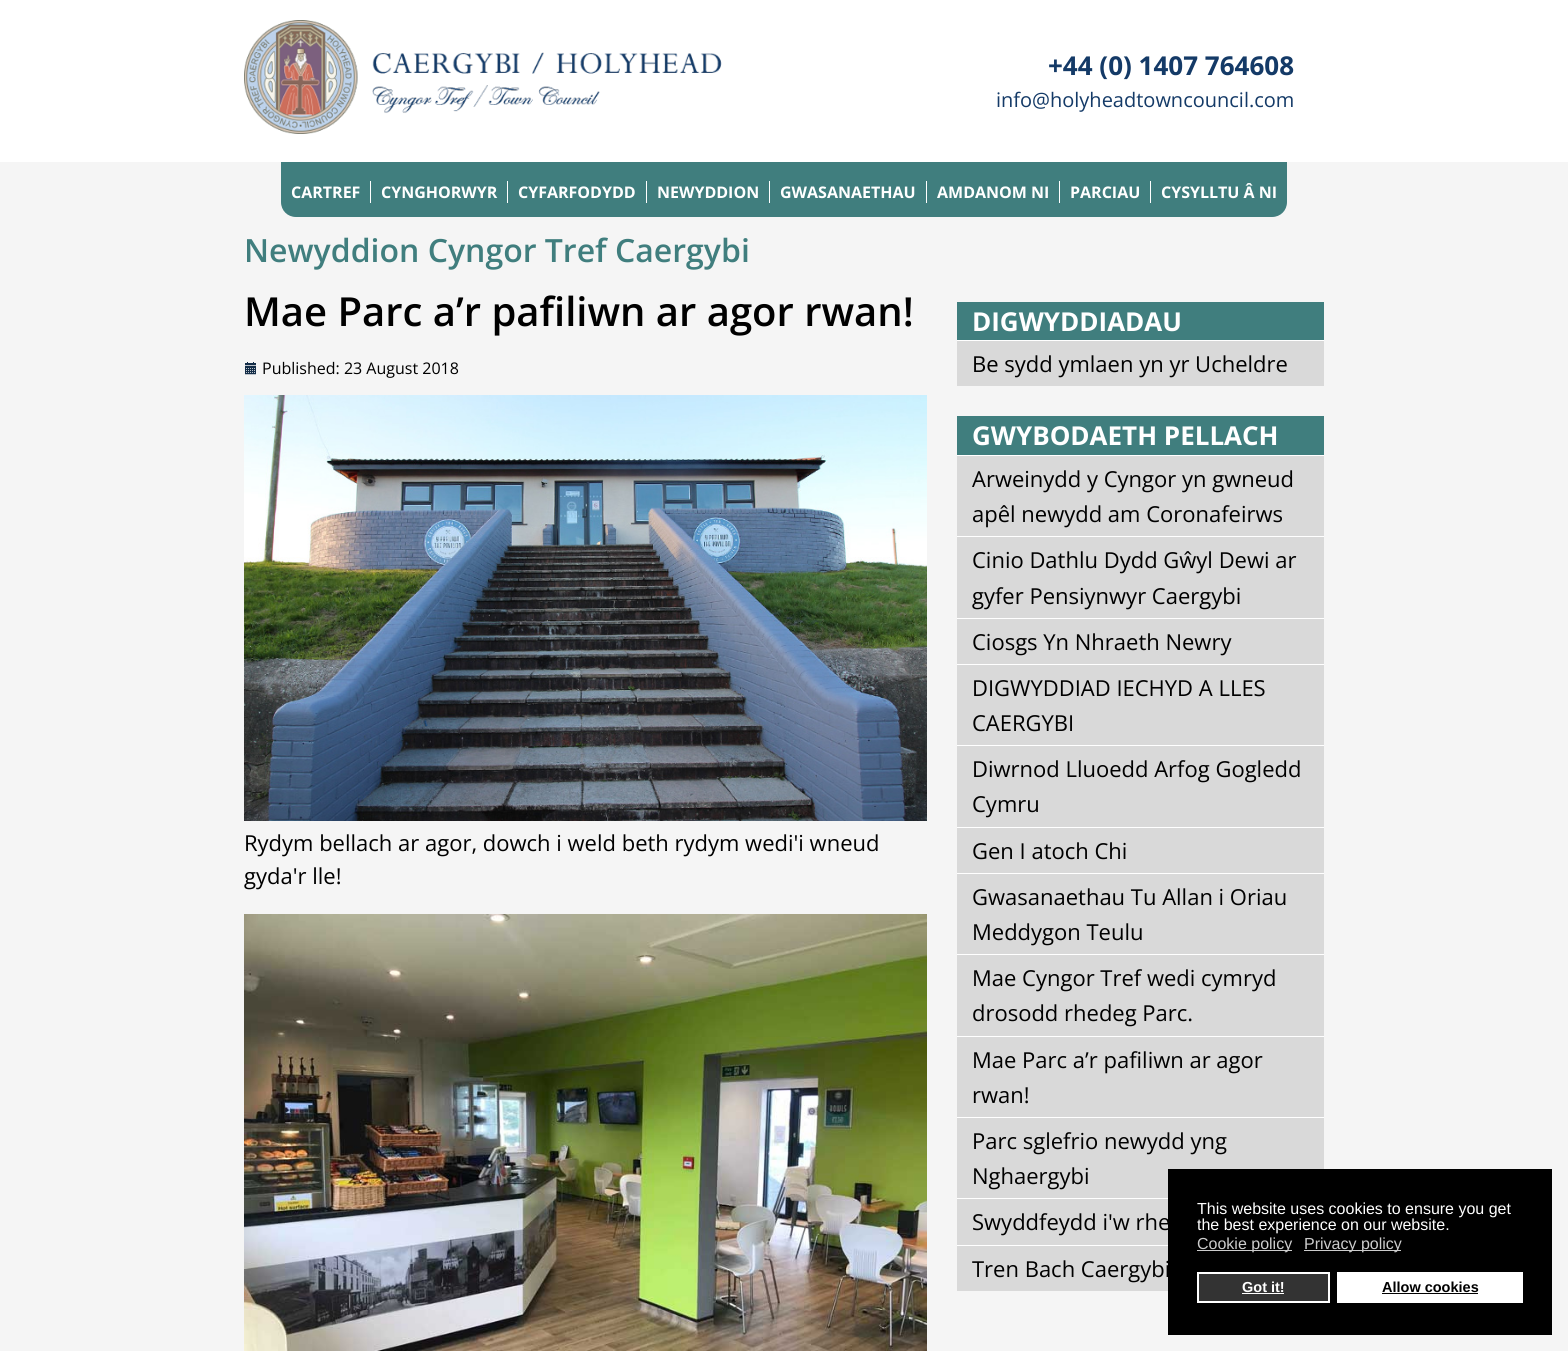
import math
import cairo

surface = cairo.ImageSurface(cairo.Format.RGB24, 1568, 1351)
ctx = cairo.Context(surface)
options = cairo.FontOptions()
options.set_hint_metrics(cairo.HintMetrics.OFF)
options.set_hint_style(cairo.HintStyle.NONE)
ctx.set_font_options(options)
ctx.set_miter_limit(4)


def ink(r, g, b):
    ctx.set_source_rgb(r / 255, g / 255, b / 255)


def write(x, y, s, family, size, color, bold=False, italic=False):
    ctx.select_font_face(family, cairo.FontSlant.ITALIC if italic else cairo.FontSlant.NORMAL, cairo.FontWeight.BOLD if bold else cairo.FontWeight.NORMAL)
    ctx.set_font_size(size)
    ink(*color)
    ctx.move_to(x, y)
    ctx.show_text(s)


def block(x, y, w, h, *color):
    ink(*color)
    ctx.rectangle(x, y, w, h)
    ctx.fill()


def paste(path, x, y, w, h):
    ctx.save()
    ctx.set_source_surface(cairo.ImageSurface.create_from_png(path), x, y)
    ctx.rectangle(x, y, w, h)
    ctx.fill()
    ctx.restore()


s1 = dict(family="Open Sans", size=26, color=(20, 58, 103), bold=True)
s2 = dict(family="Open Sans", size=20, color=(20, 58, 103))
s3 = dict(family="Open Sans", size=16, color=(255, 255, 255), bold=True)
s4 = dict(family="Open Sans SemiBold", size=32, color=(64, 126, 126))
s5 = dict(family="Open Sans SemiBold", size=40, color=(0, 0, 0))
s6 = dict(family="Open Sans", size=16, color=(0, 0, 0))
s7 = dict(family="Open Sans", size=22, color=(0, 0, 0))
s8 = dict(family="Open Sans", size=26, color=(255, 255, 255), bold=True)
s9 = dict(family="Liberation Sans", size=16, color=(255, 255, 255))
s10 = dict(family="Liberation Sans", size=16, color=(204, 204, 204))
s11 = dict(family="Liberation Sans", size=14.5, color=(255, 255, 255), bold=True)
s12 = dict(family="Liberation Sans", size=14.5, color=(0, 0, 0), bold=True)

ink(255, 255, 255)
ctx.paint()
paste("pic1.png", 244, 20, 478, 114)
write(1048, 75, "+44 (0) 1407 764608", **s1)
write(996, 107, "info@holyheadtowncouncil.com", **s2)
block(0, 162, 1568, 1189, 245, 245, 245)
ink(64, 126, 126)
ctx.new_path()
ctx.move_to(281, 162)
ctx.line_to(1287, 162)
ctx.line_to(1287, 202)
ctx.curve_to(1287, 210.5, 1280.5, 217, 1272, 217)
ctx.line_to(296, 217)
ctx.curve_to(287.5, 217, 281, 210.5, 281, 202)
ctx.close_path()
ctx.fill()
write(291, 198, "CARTREF", **s3)
write(381, 198, "CYNGHORWYR", **s3)
block(370, 181, 1, 22, 255, 255, 255)
write(518, 198, "CYFARFODYDD", **s3)
block(507, 181, 1, 22, 255, 255, 255)
write(657, 198, "NEWYDDION", **s3)
block(646, 181, 1, 22, 255, 255, 255)
write(780, 198, "GWASANAETHAU", **s3)
block(769, 181, 1, 22, 255, 255, 255)
write(937, 198, "AMDANOM NI", **s3)
block(926, 181, 1, 22, 255, 255, 255)
write(1070, 198, "PARCIAU", **s3)
block(1059, 181, 1, 22, 255, 255, 255)
write(1161, 198, "CYSYLLTU Â NI", **s3)
block(1150, 181, 1, 22, 255, 255, 255)
write(244, 262, "Newyddion Cyngor Tref Caergybi", **s4)
write(244, 326, "Mae Parc a’r pafiliwn ar agor rwan!", **s5)
paste("pic2.png", 245, 362, 11, 13)
write(262, 374, "Published: 23 August 2018", **s6)
paste("pic3.png", 244, 395, 683, 426)
write(244, 851, "Rydym bellach ar agor, dowch i weld beth rydym wedi'i wneud", **s7)
write(244, 884, "gyda'r lle!", **s7)
paste("pic4.png", 244, 914, 683, 437)
block(957, 302, 367, 38, 64, 126, 126)
write(972, 331, "DIGWYDDIADAU", **s8)
block(957, 341, 367, 45, 217, 217, 217)
block(957, 340, 367, 1, 255, 255, 255)
write(972, 372, "Be sydd ymlaen yn yr Ucheldre", **s7)
block(957, 416, 367, 39, 64, 126, 126)
write(972, 445, "GWYBODAETH PELLACH", **s8)
block(957, 456, 367, 80, 217, 217, 217)
block(957, 455, 367, 1, 255, 255, 255)
write(972, 487, "Arweinydd y Cyngor yn gwneud", **s7)
write(972, 522, "apêl newydd am Coronafeirws", **s7)
block(957, 537, 367, 81, 217, 217, 217)
block(957, 536, 367, 1, 255, 255, 255)
write(972, 568, "Cinio Dathlu Dydd Gŵyl Dewi ar", **s7)
write(972, 604, "gyfer Pensiynwyr Caergybi", **s7)
block(957, 619, 367, 45, 217, 217, 217)
block(957, 618, 367, 1, 255, 255, 255)
write(972, 650, "Ciosgs Yn Nhraeth Newry", **s7)
block(957, 665, 367, 80, 217, 217, 217)
block(957, 664, 367, 1, 255, 255, 255)
write(972, 696, "DIGWYDDIAD IECHYD A LLES", **s7)
write(972, 731, "CAERGYBI", **s7)
block(957, 746, 367, 81, 217, 217, 217)
block(957, 745, 367, 1, 255, 255, 255)
write(972, 777, "Diwrnod Lluoedd Arfog Gogledd", **s7)
write(972, 812, "Cymru", **s7)
block(957, 828, 367, 45, 217, 217, 217)
block(957, 827, 367, 1, 255, 255, 255)
write(972, 859, "Gen I atoch Chi", **s7)
block(957, 874, 367, 80, 217, 217, 217)
block(957, 873, 367, 1, 255, 255, 255)
write(972, 905, "Gwasanaethau Tu Allan i Oriau", **s7)
write(972, 940, "Meddygon Teulu", **s7)
block(957, 955, 367, 81, 217, 217, 217)
block(957, 954, 367, 1, 255, 255, 255)
write(972, 986, "Mae Cyngor Tref wedi cymryd", **s7)
write(972, 1021, "drosodd rhedeg Parc.", **s7)
block(957, 1037, 367, 80, 217, 217, 217)
block(957, 1036, 367, 1, 255, 255, 255)
write(972, 1068, "Mae Parc a’r pafiliwn ar agor", **s7)
write(972, 1103, "rwan!", **s7)
block(957, 1118, 367, 80, 217, 217, 217)
block(957, 1117, 367, 1, 255, 255, 255)
write(972, 1149, "Parc sglefrio newydd yng", **s7)
write(972, 1184, "Nghaergybi", **s7)
block(957, 1199, 211, 46, 217, 217, 217)
block(957, 1198, 211, 1, 255, 255, 255)
write(972, 1230, "Swyddfeydd i'w rhe", **s7)
block(957, 1246, 211, 45, 217, 217, 217)
block(957, 1245, 211, 1, 255, 255, 255)
write(972, 1277, "Tren Bach Caergybi", **s7)
block(1168, 1169, 384, 166, 0, 0, 0)
write(1197, 1214, "This website uses cookies to ensure you get", **s9)
write(1197, 1230, "the best experience on our website.", **s9)
block(1197, 1250, 95, 1, 204, 204, 204)
write(1197, 1249, "Cookie policy", **s10)
block(1304, 1250, 97, 1, 204, 204, 204)
write(1304, 1249, "Privacy policy", **s10)
ink(51, 51, 51)
ctx.rectangle(1198, 1273, 131, 29)
ctx.fill_preserve()
ink(255, 255, 255)
ctx.stroke()
write(1242, 1292, "Got it!", **s11)
block(1242, 1293, 42, 1, 255, 255, 255)
block(1337, 1272, 186, 31, 255, 255, 255)
write(1382, 1292, "Allow cookies", **s12)
block(1382, 1293, 96, 1, 0, 0, 0)
surface.write_to_png("screenshot.png")
